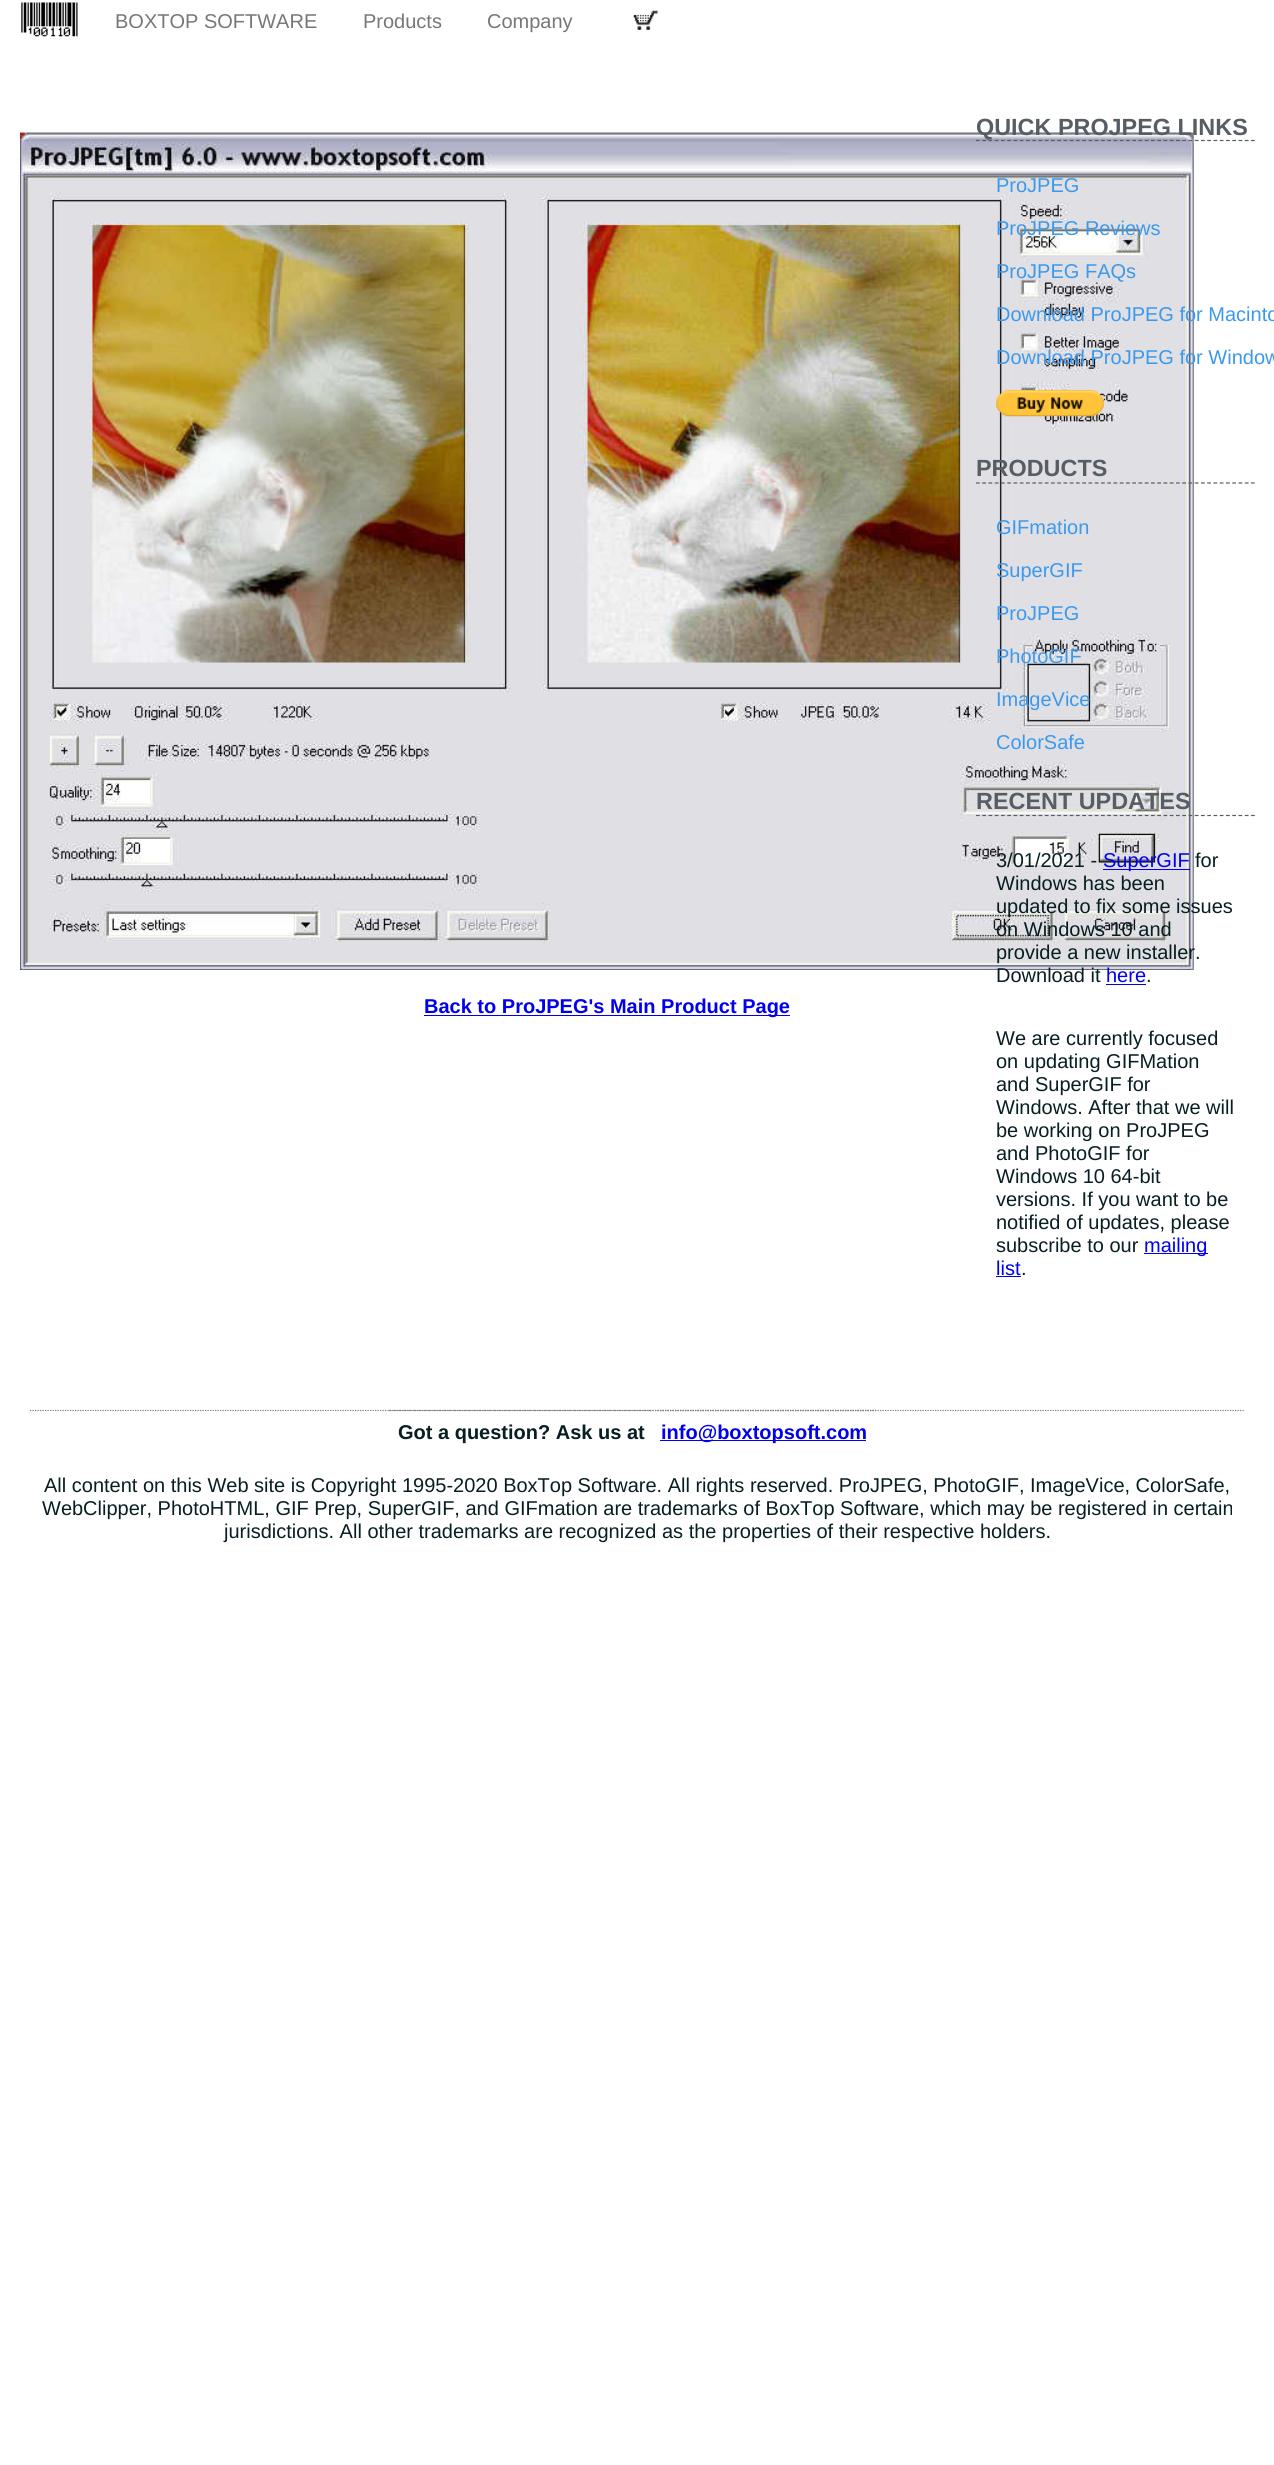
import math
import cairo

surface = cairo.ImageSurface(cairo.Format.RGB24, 1274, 2465)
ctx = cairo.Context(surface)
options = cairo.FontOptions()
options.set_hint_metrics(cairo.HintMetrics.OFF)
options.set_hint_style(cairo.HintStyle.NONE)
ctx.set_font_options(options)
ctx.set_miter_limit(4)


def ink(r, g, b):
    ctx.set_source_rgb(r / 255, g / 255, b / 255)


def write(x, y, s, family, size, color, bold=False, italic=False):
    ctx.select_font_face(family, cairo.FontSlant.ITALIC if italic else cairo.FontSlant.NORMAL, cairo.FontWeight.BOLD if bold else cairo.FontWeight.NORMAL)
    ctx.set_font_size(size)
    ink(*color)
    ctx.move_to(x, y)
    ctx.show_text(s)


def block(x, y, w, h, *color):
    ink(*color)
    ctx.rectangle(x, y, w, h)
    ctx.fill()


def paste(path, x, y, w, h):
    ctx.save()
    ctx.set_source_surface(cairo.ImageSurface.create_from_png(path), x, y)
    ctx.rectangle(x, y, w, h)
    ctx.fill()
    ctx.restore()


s1 = dict(family="Liberation Sans", size=20, color=(119, 119, 119))
s2 = dict(family="Liberation Sans", size=20, color=(0, 0, 238), bold=True)
s3 = dict(family="Liberation Sans", size=23.4, color=(86, 93, 100), bold=True)
s4 = dict(family="Liberation Sans", size=20, color=(59, 153, 237))
s5 = dict(family="Liberation Sans", size=20, color=(7, 30, 34))
s6 = dict(family="Liberation Sans", size=20, color=(0, 0, 238))
s7 = dict(family="Liberation Sans", size=20, color=(7, 30, 34), bold=True)

ink(255, 255, 255)
ctx.paint()
paste("pic1.png", 21, 2, 57, 35)
write(115, 28, "BOXTOP SOFTWARE", **s1)
write(363, 28, "Products", **s1)
write(487, 28, "Company", **s1)
paste("pic2.png", 633, 10, 25, 20)
paste("pic3.png", 20, 132, 1174, 838)
block(424, 1015, 366, 1, 0, 0, 238)
write(424, 1013, "Back to ProJPEG's Main Product Page", **s2)
ctx.new_path()
ctx.move_to(976, 140.5)
ctx.line_to(1255, 140.5)
ink(86, 93, 100)
ctx.set_line_width(1.2)
ctx.set_dash([3.75, 2.5])
ctx.stroke()
write(976, 135, "QUICK PROJPEG LINKS", **s3)
write(996, 192, "ProJPEG", **s4)
write(996, 235, "ProJPEG Reviews", **s4)
write(996, 278, "ProJPEG FAQs", **s4)
write(996, 321, "Download ProJPEG for Macinto", **s4)
write(996, 364, "Download ProJPEG for Window", **s4)
paste("pic4.png", 996, 390, 108, 27)
ctx.new_path()
ctx.move_to(976, 483)
ctx.line_to(1255, 483)
ink(86, 93, 100)
ctx.stroke()
write(976, 476, "PRODUCTS", **s3)
write(996, 534, "GIFmation", **s4)
write(996, 577, "SuperGIF", **s4)
write(996, 620, "ProJPEG", **s4)
write(996, 663, "PhotoGIF", **s4)
write(996, 706, "ImageVice", **s4)
write(996, 749, "ColorSafe", **s4)
ctx.new_path()
ctx.move_to(976, 815.5)
ctx.line_to(1255, 815.5)
ink(86, 93, 100)
ctx.stroke()
write(976, 809, "RECENT UPDATES", **s3)
write(996, 867, "3/01/2021 -", **s5)
block(1103, 869, 87, 1, 0, 0, 238)
write(1103, 867, "SuperGIF", **s6)
write(1195, 867, "for", **s5)
write(996, 890, "Windows has been", **s5)
write(996, 913, "updated to fix some issues", **s5)
write(996, 936, "on Windows 10 and", **s5)
write(996, 959, "provide a new installer.", **s5)
write(996, 982, "Download it", **s5)
write(1106, 982, "here", **s6)
block(1106, 984, 40, 1, 0, 0, 238)
write(1146, 982, ".", **s5)
write(996, 1045, "We are currently focused", **s5)
write(996, 1068, "on updating GIFMation", **s5)
write(996, 1091, "and SuperGIF for", **s5)
write(996, 1114, "Windows. After that we will", **s5)
write(996, 1137, "be working on ProJPEG", **s5)
write(996, 1160, "and PhotoGIF for", **s5)
write(996, 1183, "Windows 10 64-bit", **s5)
write(996, 1206, "versions. If you want to be", **s5)
write(996, 1229, "notified of updates, please", **s5)
write(996, 1252, "subscribe to our", **s5)
block(1144, 1253, 64, 1, 0, 0, 238)
write(1144, 1252, "mailing", **s6)
write(996, 1275, "list", **s6)
block(996, 1276, 25, 1, 0, 0, 238)
write(1021, 1275, ".", **s5)
ctx.new_path()
ctx.move_to(30, 1410.5)
ctx.line_to(1245, 1410.5)
ink(128, 128, 128)
ctx.set_dash([1.25, 1.25])
ctx.stroke()
write(398, 1439, "Got a question? Ask us at", **s7)
ctx.new_path()
ctx.move_to(389, 1410.5)
ctx.line_to(650, 1410.5)
ink(128, 128, 128)
ctx.stroke()
block(660, 1440, 206, 1, 0, 0, 238)
write(661, 1439, "info@boxtopsoft.com", **s2)
ctx.new_path()
ctx.move_to(660, 1410.5)
ctx.line_to(876, 1410.5)
ink(128, 128, 128)
ctx.stroke()
ctx.new_path()
ctx.move_to(650, 1410.5)
ctx.line_to(876, 1410.5)
ctx.stroke()
write(44, 1492, "All content on this Web site is Copyright 1995-2020 BoxTop Software. All rights reserved. ProJPEG, PhotoGIF, ImageVice, ColorSafe,", **s5)
write(42, 1515, "WebClipper, PhotoHTML, GIF Prep, SuperGIF, and GIFmation are trademarks of BoxTop Software, which may be registered in certain", **s5)
write(224, 1538, "jurisdictions. All other trademarks are recognized as the properties of their respective holders.", **s5)
surface.write_to_png("screenshot.png")
